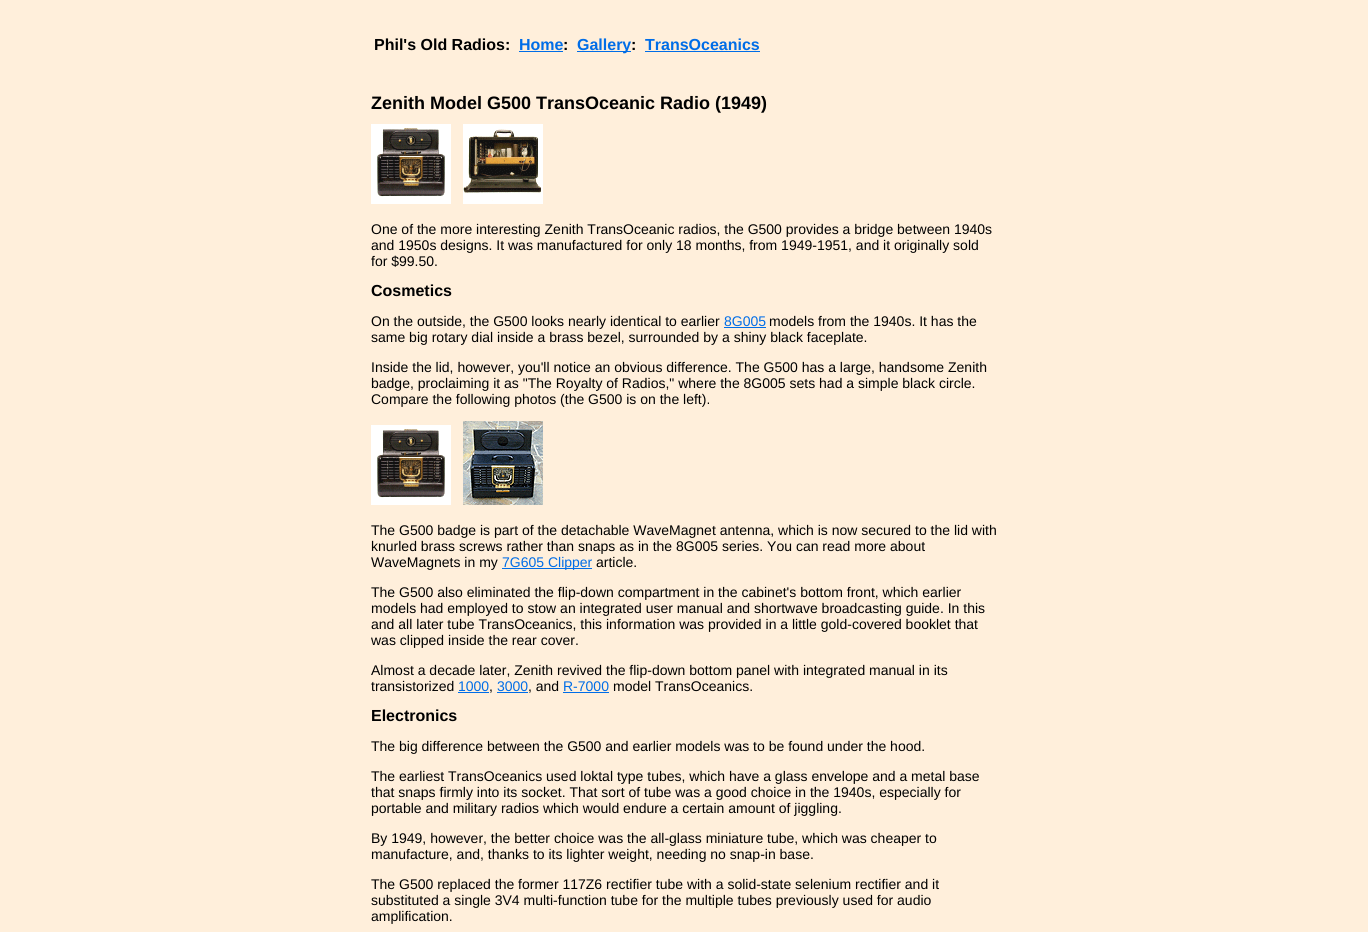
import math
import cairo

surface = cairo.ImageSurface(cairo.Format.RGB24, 1368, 932)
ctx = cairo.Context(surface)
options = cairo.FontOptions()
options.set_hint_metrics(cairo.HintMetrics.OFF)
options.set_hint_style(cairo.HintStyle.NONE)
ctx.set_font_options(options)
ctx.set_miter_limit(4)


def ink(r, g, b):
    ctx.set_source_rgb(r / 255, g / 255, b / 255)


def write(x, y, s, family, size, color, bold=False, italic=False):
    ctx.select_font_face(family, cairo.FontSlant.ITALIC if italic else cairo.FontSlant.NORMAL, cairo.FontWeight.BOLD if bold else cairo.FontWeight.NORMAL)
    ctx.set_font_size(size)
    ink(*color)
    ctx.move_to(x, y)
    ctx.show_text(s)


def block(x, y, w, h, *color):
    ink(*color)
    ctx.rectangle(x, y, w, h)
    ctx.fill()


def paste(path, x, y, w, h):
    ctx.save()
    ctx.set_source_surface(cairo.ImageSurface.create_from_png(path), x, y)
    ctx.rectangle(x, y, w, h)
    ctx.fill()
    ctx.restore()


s1 = dict(family="Liberation Sans", size=16, color=(0, 0, 0), bold=True)
s2 = dict(family="Liberation Sans", size=16, color=(0, 109, 231), bold=True)
s3 = dict(family="Liberation Sans", size=18, color=(0, 0, 0), bold=True)
s4 = dict(family="Liberation Sans", size=14, color=(0, 0, 0))
s5 = dict(family="Liberation Sans", size=14, color=(0, 109, 231))

ink(255, 239, 219)
ctx.paint()
write(374, 50, "Phil's Old Radios:", **s1)
write(519, 50, "Home", **s2)
block(519, 51, 44, 1, 0, 109, 231)
write(563, 50, ":", **s1)
block(577, 51, 54, 1, 0, 109, 231)
write(577, 50, "Gallery", **s2)
write(631, 50, ":", **s1)
write(645, 50, "TransOceanics", **s2)
block(645, 51, 115, 1, 0, 109, 231)
write(371, 109, "Zenith Model G500 TransOceanic Radio (1949)", **s3)
paste("pic1.png", 371, 124, 80, 80)
paste("pic2.png", 463, 124, 80, 80)
write(371, 234, "One of the more interesting Zenith TransOceanic radios, the G500 provides a bridge between 1940s", **s4)
write(371, 250, "and 1950s designs. It was manufactured for only 18 months, from 1949-1951, and it originally sold", **s4)
write(371, 266, "for $99.50.", **s4)
write(371, 296, "Cosmetics", **s1)
write(371, 326, "On the outside, the G500 looks nearly identical to earlier", **s4)
write(724, 326, "8G005", **s5)
block(724, 327, 42, 1, 0, 109, 231)
write(769, 326, "models from the 1940s. It has the", **s4)
write(371, 342, "same big rotary dial inside a brass bezel, surrounded by a shiny black faceplate.", **s4)
write(371, 372, "Inside the lid, however, you'll notice an obvious difference. The G500 has a large, handsome Zenith", **s4)
write(371, 388, "badge, proclaiming it as \"The Royalty of Radios,\" where the 8G005 sets had a simple black circle.", **s4)
write(371, 404, "Compare the following photos (the G500 is on the left).", **s4)
paste("pic1.png", 371, 425, 80, 80)
paste("pic3.png", 463, 421, 80, 84)
write(371, 535, "The G500 badge is part of the detachable WaveMagnet antenna, which is now secured to the lid with", **s4)
write(371, 551, "knurled brass screws rather than snaps as in the 8G005 series. You can read more about", **s4)
write(371, 567, "WaveMagnets in my", **s4)
block(502, 568, 90, 1, 0, 109, 231)
write(502, 567, "7G605 Clipper", **s5)
write(596, 567, "article.", **s4)
write(371, 597, "The G500 also eliminated the flip-down compartment in the cabinet's bottom front, which earlier", **s4)
write(371, 613, "models had employed to stow an integrated user manual and shortwave broadcasting guide. In this", **s4)
write(371, 629, "and all later tube TransOceanics, this information was provided in a little gold-covered booklet that", **s4)
write(371, 645, "was clipped inside the rear cover.", **s4)
write(371, 675, "Almost a decade later, Zenith revived the flip-down bottom panel with integrated manual in its", **s4)
write(371, 691, "transistorized", **s4)
write(458, 691, "1000", **s5)
block(458, 692, 31, 1, 0, 109, 231)
write(489, 691, ",", **s4)
write(497, 691, "3000", **s5)
block(497, 692, 31, 1, 0, 109, 231)
write(528, 691, ", and", **s4)
write(563, 691, "R-7000", **s5)
block(563, 692, 46, 1, 0, 109, 231)
write(613, 691, "model TransOceanics.", **s4)
write(371, 721, "Electronics", **s1)
write(371, 751, "The big difference between the G500 and earlier models was to be found under the hood.", **s4)
write(371, 781, "The earliest TransOceanics used loktal type tubes, which have a glass envelope and a metal base", **s4)
write(371, 797, "that snaps firmly into its socket. That sort of tube was a good choice in the 1940s, especially for", **s4)
write(371, 813, "portable and military radios which would endure a certain amount of jiggling.", **s4)
write(371, 843, "By 1949, however, the better choice was the all-glass miniature tube, which was cheaper to", **s4)
write(371, 859, "manufacture, and, thanks to its lighter weight, needing no snap-in base.", **s4)
write(371, 889, "The G500 replaced the former 117Z6 rectifier tube with a solid-state selenium rectifier and it", **s4)
write(371, 905, "substituted a single 3V4 multi-function tube for the multiple tubes previously used for audio", **s4)
write(371, 921, "amplification.", **s4)
surface.write_to_png("screenshot.png")
